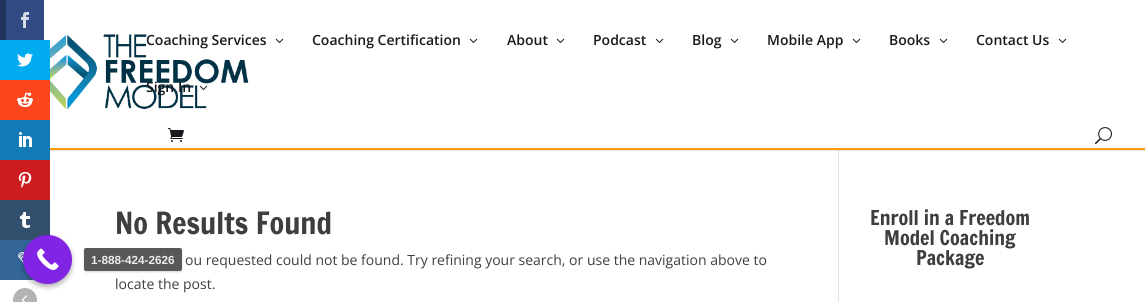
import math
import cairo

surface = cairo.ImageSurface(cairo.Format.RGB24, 1145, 302)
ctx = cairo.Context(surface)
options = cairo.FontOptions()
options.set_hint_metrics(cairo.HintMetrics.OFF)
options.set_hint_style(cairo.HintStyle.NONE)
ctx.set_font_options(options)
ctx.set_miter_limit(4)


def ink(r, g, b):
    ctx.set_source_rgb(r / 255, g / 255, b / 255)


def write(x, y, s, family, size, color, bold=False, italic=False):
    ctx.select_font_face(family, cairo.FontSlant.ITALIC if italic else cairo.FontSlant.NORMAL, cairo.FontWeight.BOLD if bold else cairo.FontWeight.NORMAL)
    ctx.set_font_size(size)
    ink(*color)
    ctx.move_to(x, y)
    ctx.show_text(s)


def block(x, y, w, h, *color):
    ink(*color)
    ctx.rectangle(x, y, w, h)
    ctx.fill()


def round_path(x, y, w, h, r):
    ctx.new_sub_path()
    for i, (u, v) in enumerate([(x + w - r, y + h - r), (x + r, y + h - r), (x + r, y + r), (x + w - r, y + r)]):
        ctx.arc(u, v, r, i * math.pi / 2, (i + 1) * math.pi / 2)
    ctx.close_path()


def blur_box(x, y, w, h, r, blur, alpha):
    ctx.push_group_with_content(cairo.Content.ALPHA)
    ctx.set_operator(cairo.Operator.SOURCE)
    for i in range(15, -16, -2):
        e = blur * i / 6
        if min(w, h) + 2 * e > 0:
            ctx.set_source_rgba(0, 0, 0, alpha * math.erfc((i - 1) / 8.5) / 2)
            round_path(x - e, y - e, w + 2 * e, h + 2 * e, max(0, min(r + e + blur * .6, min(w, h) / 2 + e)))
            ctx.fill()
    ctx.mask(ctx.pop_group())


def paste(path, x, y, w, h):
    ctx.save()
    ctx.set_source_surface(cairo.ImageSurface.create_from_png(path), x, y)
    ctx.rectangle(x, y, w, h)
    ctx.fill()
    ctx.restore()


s1 = dict(family="Open Sans SemiBold", size=14, color=(26, 26, 30))
s2 = dict(family="Open Sans SemiBold", size=14, color=(17, 20, 24))
s3 = dict(family="Francois One", size=30, color=(62, 62, 62))
s4 = dict(family="Open Sans", size=14, color=(62, 62, 62))
s5 = dict(family="Francois One", size=20, color=(62, 62, 62))
s6 = dict(family="Liberation Sans", size=11.75, color=(236, 236, 236), bold=True)

ink(255, 255, 255)
ctx.paint()
block(50, 150, 1095, 1, 230, 230, 230)
block(6, 0, 38, 40, 49, 74, 131)
block(0, 0, 6, 40, 34, 52, 92)
paste("pic1.png", 21, 12, 8, 16)
block(0, 40, 50, 40, 0, 171, 240)
paste("pic2.png", 17, 53, 16, 14)
block(0, 80, 50, 40, 252, 70, 30)
paste("pic3.png", 17, 92, 16, 15)
block(0, 120, 50, 40, 18, 123, 182)
paste("pic4.png", 19, 132, 13, 15)
block(0, 160, 50, 40, 205, 28, 31)
paste("pic5.png", 18, 172, 14, 16)
block(0, 200, 50, 40, 50, 80, 109)
paste("pic6.png", 20, 212, 10, 16)
block(0, 240, 34, 40, 51, 102, 151)
paste("pic7.png", 18, 252, 7, 12)
ink(179, 179, 179)
ctx.arc(25, 300, 12, 0, 2 * math.pi)
ctx.fill()
paste("pic8.png", 21, 295, 6, 7)
block(50, 148, 1095, 2, 255, 154, 0)
paste("pic9.png", 50, 34, 199, 76)
write(146, 45, "Coaching Services", **s1)
paste("pic10.png", 275, 38, 9, 5)
write(312, 45, "Coaching Certification", **s1)
paste("pic10.png", 469, 38, 9, 5)
write(507, 45, "About", **s1)
paste("pic10.png", 556, 38, 9, 5)
write(593, 45, "Podcast", **s1)
paste("pic10.png", 655, 38, 9, 5)
write(692, 45, "Blog", **s1)
paste("pic10.png", 730, 38, 9, 5)
write(767, 45, "Mobile App", **s1)
paste("pic10.png", 852, 38, 9, 5)
write(889, 45, "Books", **s1)
paste("pic10.png", 939, 38, 9, 5)
write(976, 45, "Contact Us", **s1)
paste("pic10.png", 1058, 38, 9, 5)
write(146, 92, "Sign In", **s2)
paste("pic10.png", 199, 85, 9, 5)
paste("pic11.png", 168, 128, 16, 14)
paste("pic12.png", 1095, 127, 17, 18)
block(838, 150, 1, 152, 226, 226, 226)
block(838, 150, 1, 1, 203, 203, 203)
write(115, 234, "No Results Found", **s3)
write(185, 265, "ou requested could not be found. Try refining your search, or use the navigation above to", **s4)
write(115, 289, "locate the post.", **s4)
write(870, 225, "Enroll in a Freedom", **s5)
write(884, 245, "Model Coaching", **s5)
write(916, 265, "Package", **s5)
ink(0, 0, 0)
blur_box(23, 237, 49, 50, 24.5, 2.5, 0.3)
ink(130, 36, 227)
ctx.arc(47.5, 259.5, 24.5, 0, 2 * math.pi)
ctx.fill()
paste("pic13.png", 37, 248, 22, 22)
ctx.save()
ctx.set_fill_rule(cairo.FillRule.EVEN_ODD)
ctx.new_path()
ctx.move_to(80, 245)
ctx.line_to(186, 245)
ctx.line_to(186, 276)
ctx.line_to(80, 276)
ctx.close_path()
ctx.move_to(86, 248)
ctx.line_to(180, 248)
ctx.curve_to(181, 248, 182, 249, 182, 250)
ctx.line_to(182, 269)
ctx.curve_to(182, 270, 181, 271, 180, 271)
ctx.line_to(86, 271)
ctx.curve_to(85, 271, 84, 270, 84, 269)
ctx.line_to(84, 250)
ctx.curve_to(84, 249, 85, 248, 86, 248)
ctx.close_path()
ctx.clip()
ink(0, 0, 0)
blur_box(84, 249, 98, 23, 2, 1, 0.15)
ctx.restore()
ctx.set_source_rgba(0.275, 0.275, 0.275, 0.9)
round_path(84, 248, 98, 23, 2)
ctx.fill()
write(91, 264, "1-888-424-2626", **s6)
surface.write_to_png("screenshot.png")
